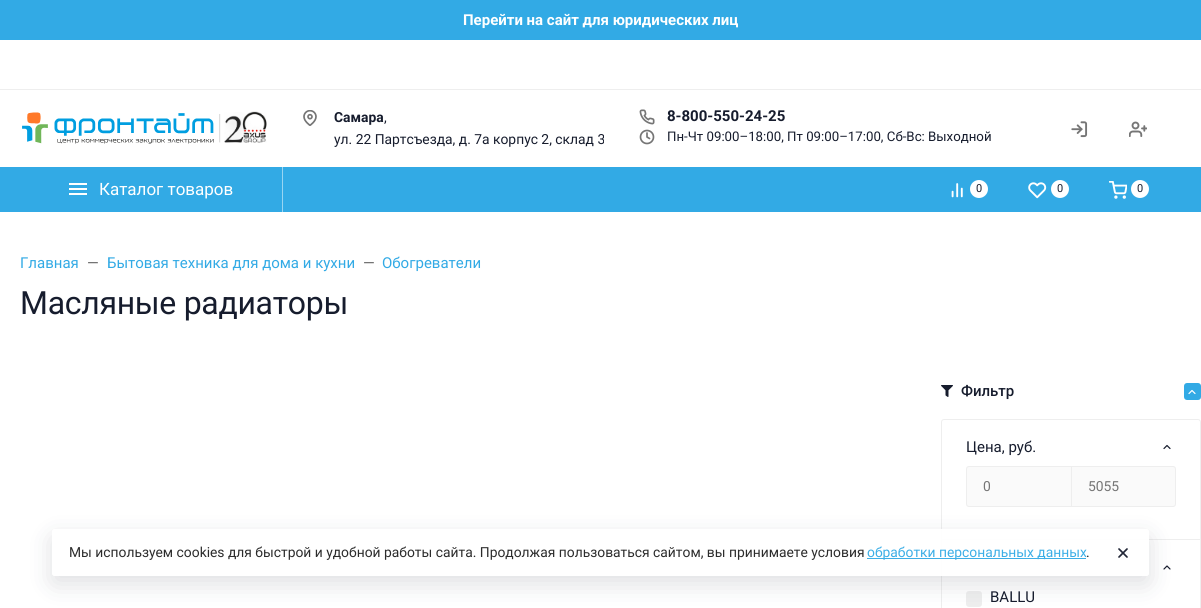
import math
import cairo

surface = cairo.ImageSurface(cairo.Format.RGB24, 1201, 608)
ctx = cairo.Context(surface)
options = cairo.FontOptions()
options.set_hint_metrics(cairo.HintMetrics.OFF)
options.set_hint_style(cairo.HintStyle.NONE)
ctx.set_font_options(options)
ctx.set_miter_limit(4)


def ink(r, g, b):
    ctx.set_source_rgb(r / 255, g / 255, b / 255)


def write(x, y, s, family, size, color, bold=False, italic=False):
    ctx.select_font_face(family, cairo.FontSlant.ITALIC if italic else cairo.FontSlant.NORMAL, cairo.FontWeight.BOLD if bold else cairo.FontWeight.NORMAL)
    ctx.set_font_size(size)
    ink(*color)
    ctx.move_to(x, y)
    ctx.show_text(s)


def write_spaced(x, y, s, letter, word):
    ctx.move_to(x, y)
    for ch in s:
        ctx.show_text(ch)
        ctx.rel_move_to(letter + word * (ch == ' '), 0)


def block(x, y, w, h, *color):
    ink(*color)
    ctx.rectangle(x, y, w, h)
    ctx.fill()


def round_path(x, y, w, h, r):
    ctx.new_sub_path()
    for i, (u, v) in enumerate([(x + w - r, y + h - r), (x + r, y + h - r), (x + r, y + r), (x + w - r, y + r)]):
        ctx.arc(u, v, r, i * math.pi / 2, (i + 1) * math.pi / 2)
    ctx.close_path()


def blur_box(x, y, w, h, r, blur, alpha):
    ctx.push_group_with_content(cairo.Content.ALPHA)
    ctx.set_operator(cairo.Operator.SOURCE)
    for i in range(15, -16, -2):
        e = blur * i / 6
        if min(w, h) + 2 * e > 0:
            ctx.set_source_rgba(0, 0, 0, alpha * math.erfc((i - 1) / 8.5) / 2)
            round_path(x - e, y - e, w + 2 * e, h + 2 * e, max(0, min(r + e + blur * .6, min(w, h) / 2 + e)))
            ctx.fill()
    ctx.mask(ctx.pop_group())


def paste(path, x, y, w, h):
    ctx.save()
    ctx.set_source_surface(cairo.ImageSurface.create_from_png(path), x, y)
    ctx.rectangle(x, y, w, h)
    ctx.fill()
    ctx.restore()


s1 = dict(family="Roboto", size=15, color=(255, 255, 255), bold=True)
s2 = dict(family="Roboto", size=13.85, color=(22, 28, 45), bold=True)
s3 = dict(family="Roboto", size=13.85, color=(22, 28, 45))
s4 = dict(family="Roboto", size=15, color=(22, 28, 45), bold=True)
s5 = dict(family="Roboto", size=13.25, color=(22, 28, 45))
s6 = dict(family="Roboto", size=17, color=(255, 255, 255))
s7 = dict(family="Roboto", size=11, color=(22, 28, 45))
s8 = dict(family="Roboto", size=15, color=(50, 170, 229))
s9 = dict(family="Roboto", size=15, color=(97, 97, 97))
s10 = dict(family="Roboto Medium", size=15, color=(22, 28, 45))
s11 = dict(family="Roboto", size=15, color=(22, 28, 45))
s12 = dict(family="Roboto", size=13.85, color=(117, 117, 117))
s13 = dict(family="Roboto", size=13.85, color=(44, 44, 44))
s14 = dict(family="Roboto", size=13.85, color=(60, 174, 230))

ink(255, 255, 255)
ctx.paint()
block(0, 0, 1201, 40, 50, 170, 229)
write(463, 25, "Перейти на сайт для юридических лиц", **s1)
block(0, 89, 1201, 1, 238, 238, 238)
paste("pic1.png", 22, 111, 245, 33)
paste("pic2.png", 303, 110, 14, 16)
write(334, 122, "Самара", **s2)
write(384, 122, ",", **s3)
write(334, 144, "ул. 22 Партсъезда, д. 7а корпус 2, склад 3", **s3)
paste("pic3.png", 639, 109, 16, 16)
write(667, 121, "8-800-550-24-25", **s4)
ctx.new_path()
ctx.arc(647, 137, 6.5, 0, 2 * math.pi)
ink(117, 117, 117)
ctx.set_line_width(1.7)
ctx.stroke()
write(667, 141, "Пн-Чт 09:00–18:00, Пт 09:00–17:00, Сб-Вс: Выходной", **s5)
ctx.new_path()
ctx.move_to(647, 133)
ctx.line_to(647, 137)
ctx.line_to(649.5, 138.5)
ink(117, 117, 117)
ctx.set_line_cap(cairo.LineCap.ROUND)
ctx.set_line_join(cairo.LineJoin.ROUND)
ctx.stroke()
paste("pic4.png", 1071, 121, 17, 17)
paste("pic5.png", 1129, 121, 18, 16)
block(0, 167, 1201, 45, 50, 170, 229)
block(282, 167, 1, 45, 153, 213, 242)
block(69, 183, 18, 2, 255, 255, 255)
block(69, 188, 18, 2, 255, 255, 255)
block(69, 193, 18, 2, 255, 255, 255)
write(99, 195, "Каталог товаров", **s6)
paste("pic6.png", 951, 183, 12, 15)
ctx.arc(979, 189, 9, 0, 2 * math.pi)
ctx.fill()
write(976, 192, "0", **s7)
paste("pic7.png", 1028, 182, 19, 17)
ink(255, 255, 255)
ctx.arc(1060, 189, 9, 0, 2 * math.pi)
ctx.fill()
write(1057, 192, "0", **s7)
paste("pic8.png", 1109, 181, 18, 18)
ink(255, 255, 255)
ctx.arc(1140, 189, 9, 0, 2 * math.pi)
ctx.fill()
write(1137, 192, "0", **s7)
write(20, 268, "Главная", **s8)
write(87, 268, "—", **s9)
write(107, 268, "Бытовая техника для дома и кухни", **s8)
write(363, 268, "—", **s9)
write(382, 268, "Обогреватели", **s8)
ctx.set_font_size(32)
ink(22, 28, 45)
write_spaced(20, 314, "Масляные радиаторы", -0.3, 0)
paste("pic9.png", 941, 385, 12, 12)
write(961, 396, "Фильтр", **s10)
ink(50, 170, 229)
round_path(1184, 383, 17, 17, 3)
ctx.fill()
ctx.new_path()
ctx.move_to(1195, 393.5)
ctx.line_to(1192, 390.5)
ctx.line_to(1189, 393.5)
ink(255, 255, 255)
ctx.set_line_width(1.2)
ctx.stroke()
round_path(941.5, 419.5, 259, 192, 2.5)
ink(238, 238, 238)
ctx.set_line_width(1)
ctx.set_line_cap(cairo.LineCap.BUTT)
ctx.set_line_join(cairo.LineJoin.MITER)
ctx.stroke()
block(942, 539, 258, 1, 238, 238, 238)
write(966, 452, "Цена, руб.", **s11)
ctx.new_path()
ctx.move_to(1170, 448.5)
ctx.line_to(1167, 445.5)
ctx.line_to(1164, 448.5)
ctx.set_line_width(1.2)
ctx.set_line_cap(cairo.LineCap.ROUND)
ctx.set_line_join(cairo.LineJoin.ROUND)
ctx.stroke()
ink(250, 250, 250)
ctx.new_path()
ctx.move_to(969, 466.5)
ctx.line_to(1071.5, 466.5)
ctx.line_to(1071.5, 506.5)
ctx.line_to(969, 506.5)
ctx.curve_to(967.5, 506.5, 966.5, 505.5, 966.5, 504)
ctx.line_to(966.5, 469)
ctx.curve_to(966.5, 467.5, 967.5, 466.5, 969, 466.5)
ctx.close_path()
ctx.fill_preserve()
ink(238, 238, 238)
ctx.set_line_width(1)
ctx.set_line_cap(cairo.LineCap.BUTT)
ctx.set_line_join(cairo.LineJoin.MITER)
ctx.stroke()
write(983, 491, "0", **s12)
ink(250, 250, 250)
ctx.new_path()
ctx.move_to(1071.5, 466.5)
ctx.line_to(1173, 466.5)
ctx.curve_to(1174.5, 466.5, 1175.5, 467.5, 1175.5, 469)
ctx.line_to(1175.5, 504)
ctx.curve_to(1175.5, 505.5, 1174.5, 506.5, 1173, 506.5)
ctx.line_to(1071.5, 506.5)
ctx.close_path()
ctx.fill_preserve()
ink(238, 238, 238)
ctx.stroke()
write(1088, 491, "5055", **s12)
ctx.new_path()
ctx.move_to(1170, 569)
ctx.line_to(1167, 566)
ctx.line_to(1164, 569)
ink(22, 28, 45)
ctx.set_line_width(1.2)
ctx.set_line_cap(cairo.LineCap.ROUND)
ctx.set_line_join(cairo.LineJoin.ROUND)
ctx.stroke()
ink(238, 238, 238)
round_path(966, 591, 16, 16, 3)
ctx.fill()
write(990, 602, "BALLU", **s11)
ctx.save()
ctx.set_fill_rule(cairo.FillRule.EVEN_ODD)
ctx.new_path()
ctx.move_to(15, 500)
ctx.line_to(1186, 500)
ctx.line_to(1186, 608)
ctx.line_to(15, 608)
ctx.close_path()
ctx.move_to(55, 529)
ctx.line_to(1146, 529)
ctx.curve_to(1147.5, 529, 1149, 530.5, 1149, 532)
ctx.line_to(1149, 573)
ctx.curve_to(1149, 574.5, 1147.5, 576, 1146, 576)
ctx.line_to(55, 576)
ctx.curve_to(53.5, 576, 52, 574.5, 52, 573)
ctx.line_to(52, 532)
ctx.curve_to(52, 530.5, 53.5, 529, 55, 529)
ctx.close_path()
ctx.clip()
ink(22, 28, 45)
blur_box(52, 537, 1097, 47, 3, 12, 0.14)
ctx.restore()
ctx.set_source_rgba(1, 1, 1, 0.95)
round_path(52, 529, 1097, 47, 3)
ctx.fill()
write(69, 557, "Мы используем cookies для быстрой и удобной работы сайта. Продолжая пользоваться сайтом, вы принимаете условия", **s13)
block(867, 558, 219, 1, 60, 174, 230)
write(867, 557, "обработки персональных данных", **s14)
write(1086, 557, ".", **s13)
ctx.new_path()
ctx.move_to(1127, 549)
ctx.line_to(1119, 557)
ctx.move_to(1119, 549)
ctx.line_to(1127, 557)
ink(34, 39, 56)
ctx.set_line_width(1.7)
ctx.stroke()
surface.write_to_png("screenshot.png")
